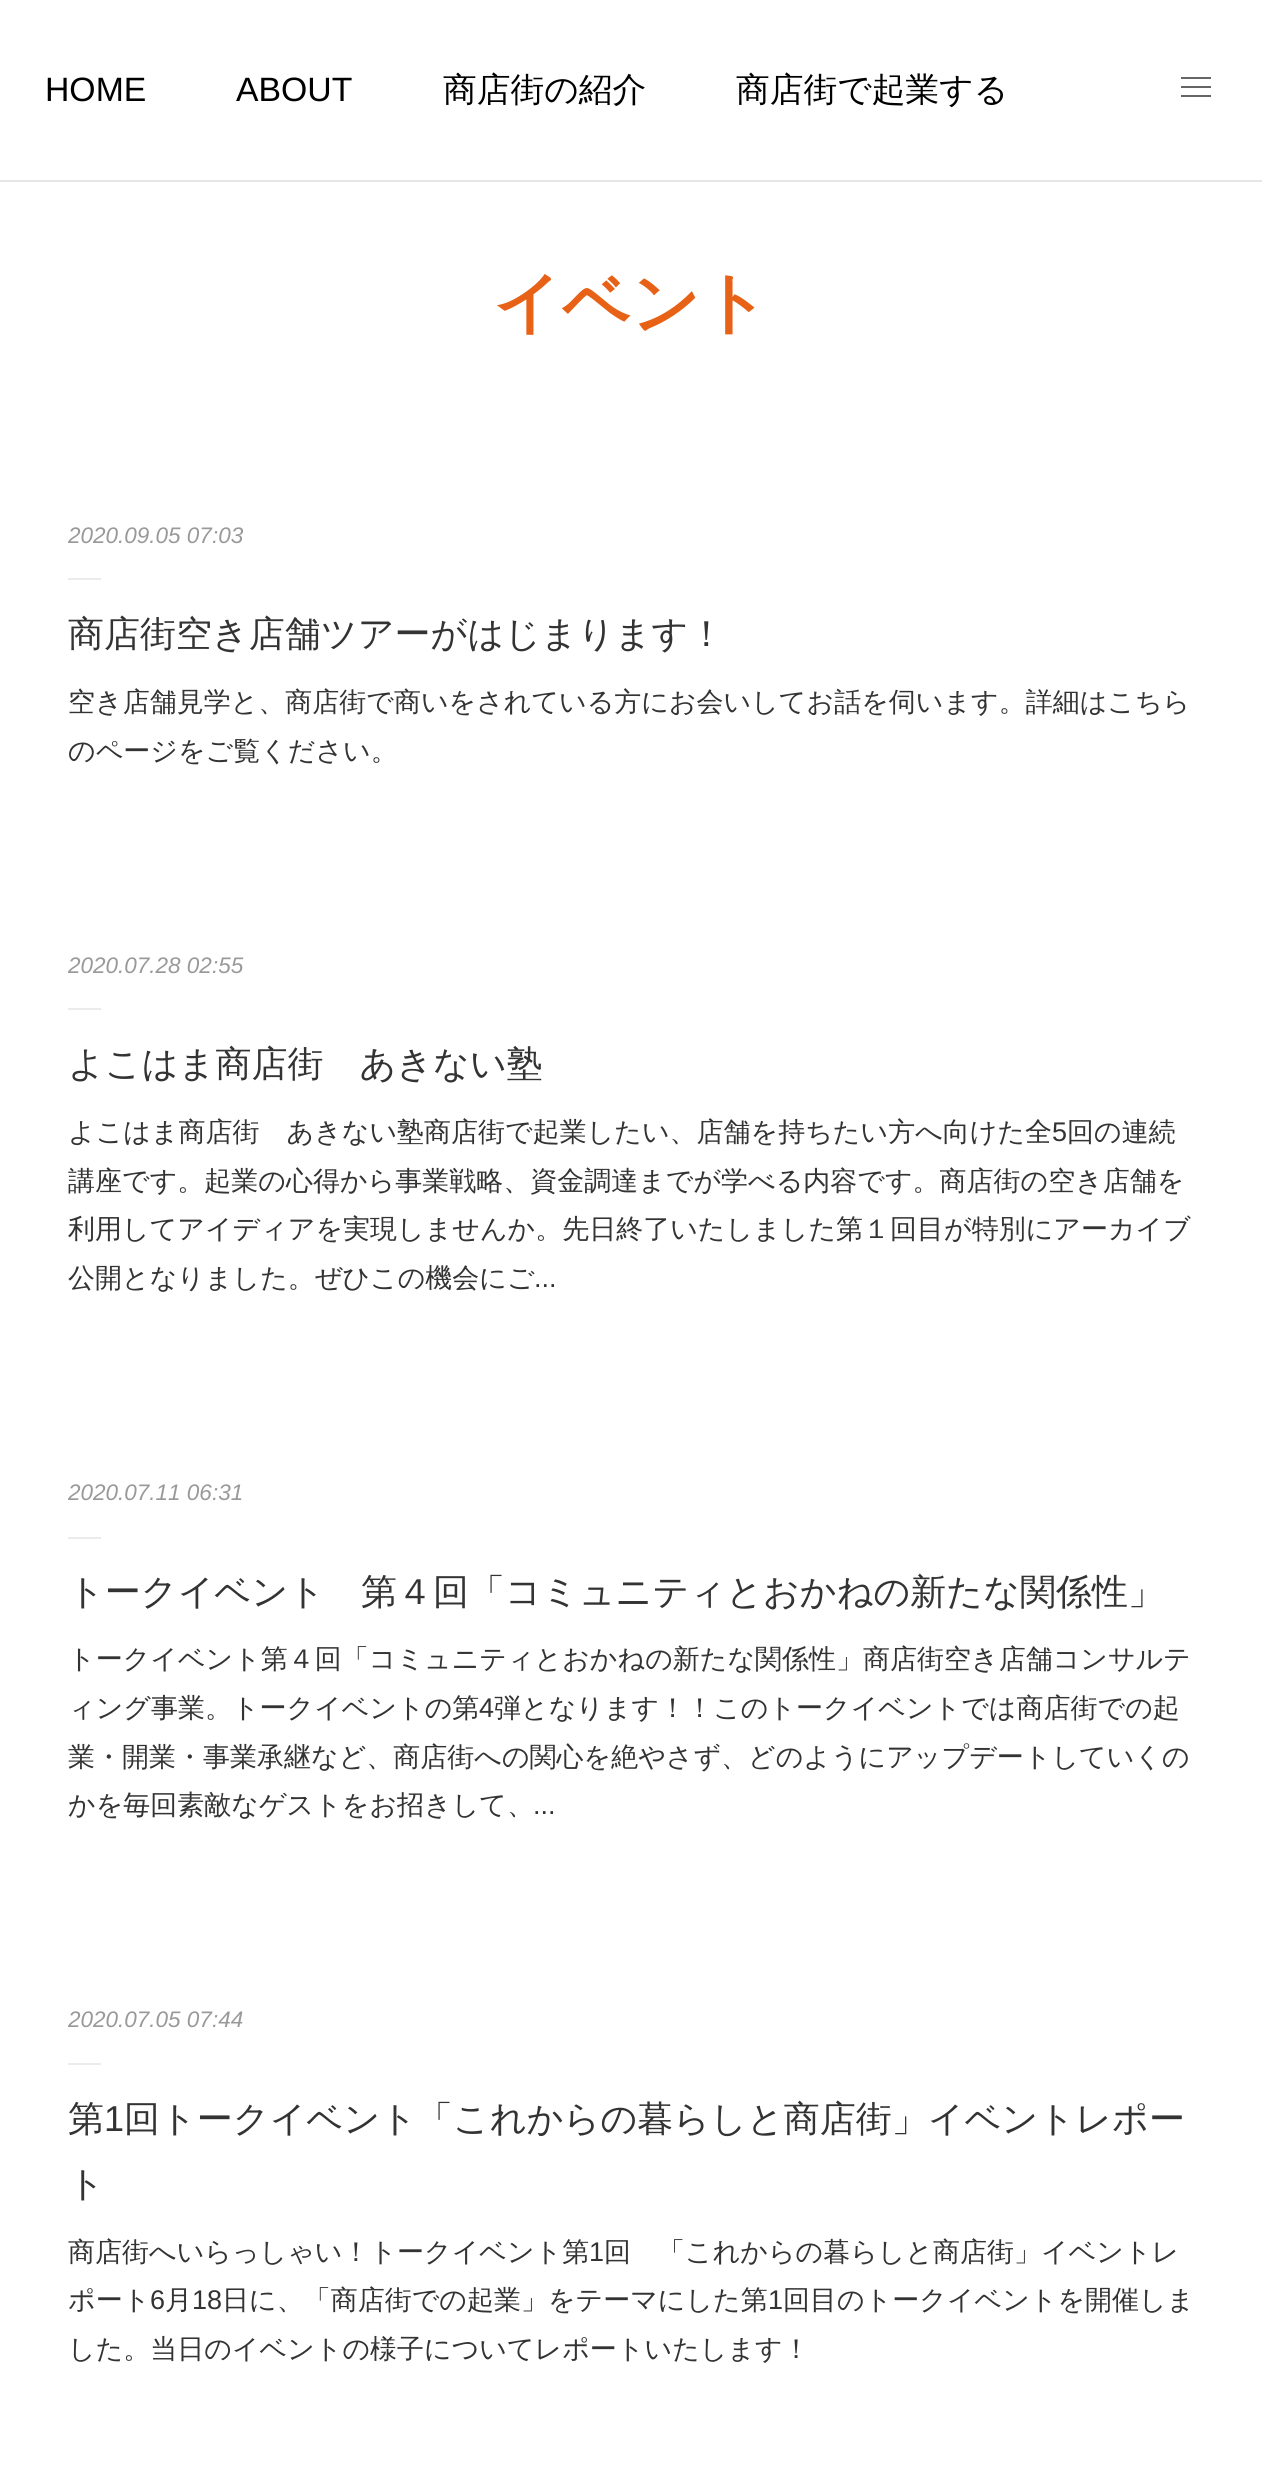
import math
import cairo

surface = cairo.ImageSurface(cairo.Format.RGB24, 1262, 2476)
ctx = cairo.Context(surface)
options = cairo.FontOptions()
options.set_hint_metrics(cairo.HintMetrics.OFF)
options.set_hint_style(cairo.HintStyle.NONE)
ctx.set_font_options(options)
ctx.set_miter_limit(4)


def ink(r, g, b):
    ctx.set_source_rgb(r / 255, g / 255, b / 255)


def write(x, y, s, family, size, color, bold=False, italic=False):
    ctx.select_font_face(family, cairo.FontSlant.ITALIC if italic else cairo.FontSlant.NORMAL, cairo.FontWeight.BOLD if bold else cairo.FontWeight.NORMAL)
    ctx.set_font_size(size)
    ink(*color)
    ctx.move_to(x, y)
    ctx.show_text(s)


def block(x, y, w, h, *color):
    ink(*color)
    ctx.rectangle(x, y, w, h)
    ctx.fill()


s1 = dict(family="Liberation Sans", size=33.75, color=(0, 0, 0))
s2 = dict(family="WenQuanYi Zen Hei Medium", size=33.75, color=(0, 0, 0))
s3 = dict(family="WenQuanYi Zen Hei", size=67.5, color=(231, 97, 23), bold=True)
s4 = dict(family="Liberation Sans", size=22.5, color=(153, 153, 153), italic=True)
s5 = dict(family="WenQuanYi Zen Hei Medium", size=36, color=(51, 51, 51))
s6 = dict(family="WenQuanYi Zen Hei Medium", size=27, color=(51, 51, 51))
s7 = dict(family="Liberation Sans", size=27, color=(51, 51, 51))
s8 = dict(family="Liberation Sans", size=36, color=(51, 51, 51))

ink(255, 255, 255)
ctx.paint()
block(0, 180, 1262, 2, 230, 230, 230)
write(45, 101, "HOME", **s1)
write(236, 101, "ABOUT", **s1)
write(443, 101, "商店街の紹介", **s2)
write(736, 101, "商店街で起業する", **s2)
block(1181, 77, 30, 2, 102, 102, 102)
block(1181, 86, 30, 2, 102, 102, 102)
block(1181, 95, 30, 2, 102, 102, 102)
write(493, 326, "イベント", **s3)
write(68, 543, "2020.09.05 07:03", **s4)
block(68, 578, 33, 2, 235, 235, 235)
write(68, 646, "商店街空き店舗ツアーがはじまります！", **s5)
write(68, 711, "空き店舗見学と、商店街で商いをされている方にお会いしてお話を伺います。詳細はこちら", **s6)
write(68, 760, "のページをご覧ください。", **s6)
write(68, 973, "2020.07.28 02:55", **s4)
block(68, 1008, 33, 2, 235, 235, 235)
write(68, 1076, "よこはま商店街　あきない塾", **s5)
write(68, 1141, "よこはま商店街　あきない塾商店街で起業したい、店舗を持ちたい方へ向けた全", **s6)
write(1052, 1141, "5", **s7)
write(1067, 1141, "回の連続", **s6)
write(68, 1190, "講座です。起業の心得から事業戦略、資金調達までが学べる内容です。商店街の空き店舗を", **s6)
write(68, 1238, "利用してアイディアを実現しませんか。先日終了いたしました第１回目が特別にアーカイブ", **s6)
write(68, 1287, "公開となりました。ぜひこの機会にご", **s6)
write(534, 1287, "...", **s7)
write(68, 1500, "2020.07.11 06:31", **s4)
block(68, 1537, 33, 2, 235, 235, 235)
write(68, 1604, "トークイベント　第４回「コミュニティとおかねの新たな関係性」", **s5)
write(68, 1668, "トークイベント第４回「コミュニティとおかねの新たな関係性」商店街空き店舗コンサルテ", **s6)
write(68, 1717, "ィング事業。トークイベントの第", **s6)
write(479, 1717, "4", **s7)
write(494, 1717, "弾となります！！このトークイベントでは商店街での起", **s6)
write(68, 1766, "業・開業・事業承継など、商店街への関心を絶やさず、どのようにアップデートしていくの", **s6)
write(68, 1814, "かを毎回素敵なゲストをお招きして、", **s6)
write(533, 1814, "...", **s7)
write(68, 2027, "2020.07.05 07:44", **s4)
block(68, 2063, 33, 2, 235, 235, 235)
write(68, 2131, "第", **s5)
write(104, 2131, "1", **s8)
write(124, 2131, "回トークイベント「これからの暮らしと商店街」イベントレポー", **s5)
write(68, 2196, "ト", **s5)
write(68, 2261, "商店街へいらっしゃい！トークイベント第", **s6)
write(589, 2261, "1", **s7)
write(604, 2261, "回　「これからの暮らしと商店街」イベントレ", **s6)
write(68, 2309, "ポート", **s6)
write(150, 2309, "6", **s7)
write(165, 2309, "月", **s6)
write(192, 2309, "18", **s7)
write(222, 2309, "日に、「商店街での起業」をテーマにした第", **s6)
write(768, 2309, "1", **s7)
write(783, 2309, "回目のトークイベントを開催しま", **s6)
write(68, 2358, "した。当日のイベントの様子についてレポートいたします！", **s6)
surface.write_to_png("screenshot.png")
